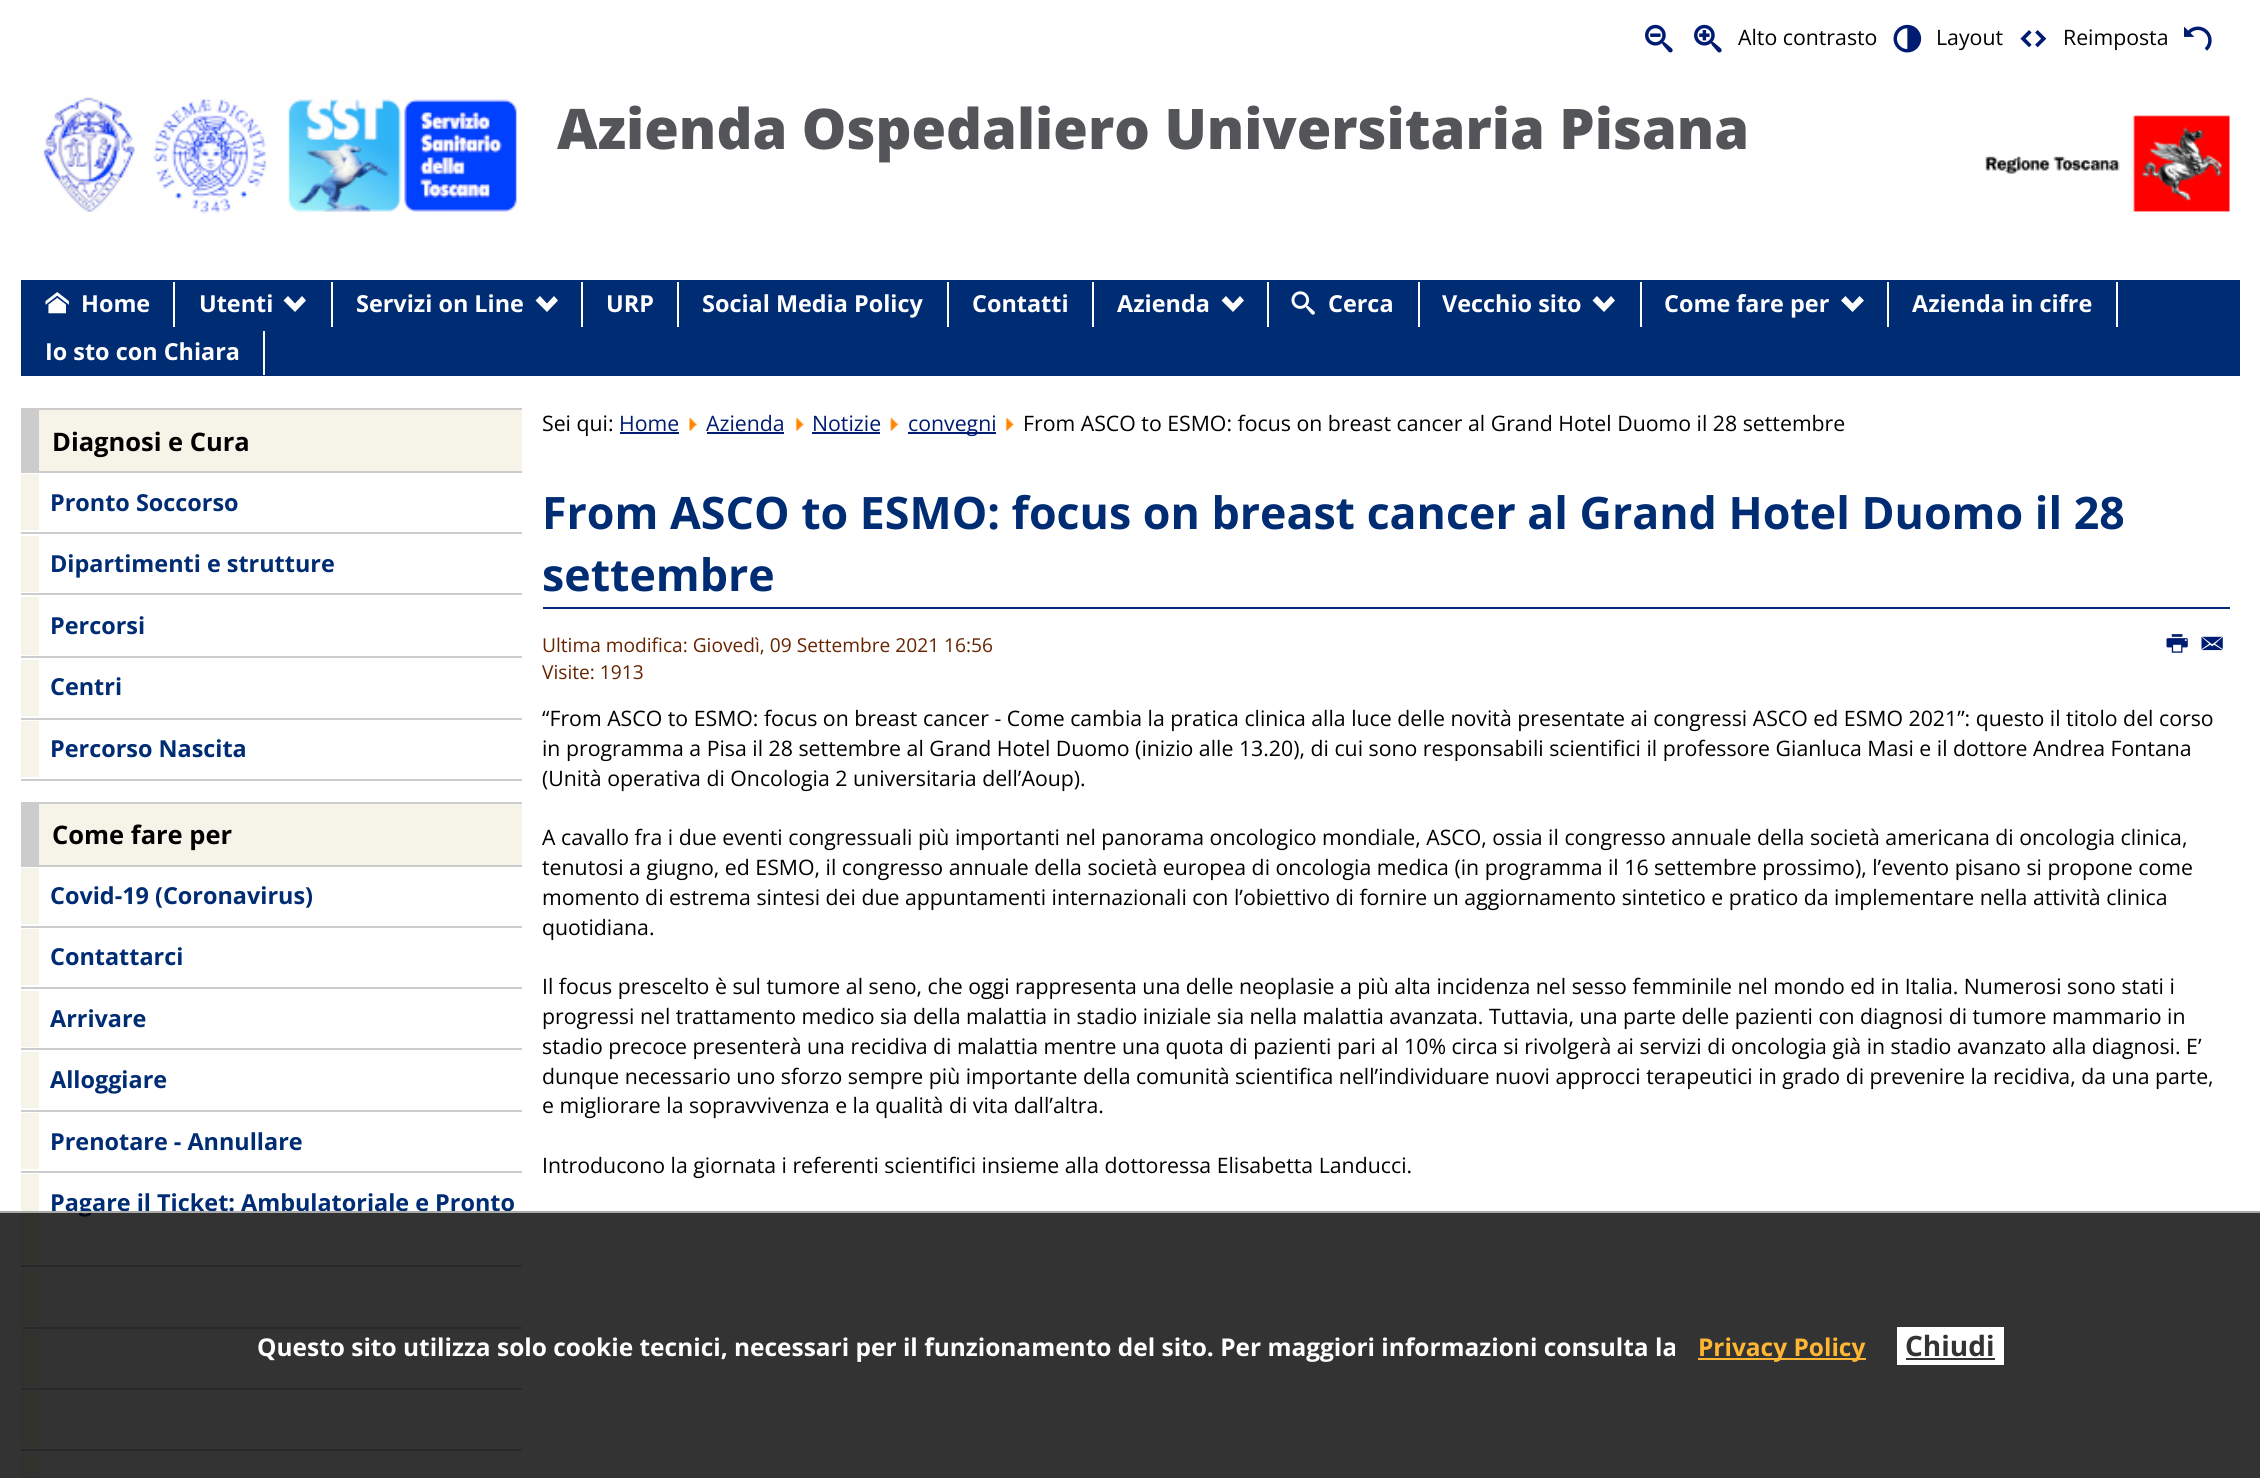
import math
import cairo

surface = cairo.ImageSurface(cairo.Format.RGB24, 2260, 1478)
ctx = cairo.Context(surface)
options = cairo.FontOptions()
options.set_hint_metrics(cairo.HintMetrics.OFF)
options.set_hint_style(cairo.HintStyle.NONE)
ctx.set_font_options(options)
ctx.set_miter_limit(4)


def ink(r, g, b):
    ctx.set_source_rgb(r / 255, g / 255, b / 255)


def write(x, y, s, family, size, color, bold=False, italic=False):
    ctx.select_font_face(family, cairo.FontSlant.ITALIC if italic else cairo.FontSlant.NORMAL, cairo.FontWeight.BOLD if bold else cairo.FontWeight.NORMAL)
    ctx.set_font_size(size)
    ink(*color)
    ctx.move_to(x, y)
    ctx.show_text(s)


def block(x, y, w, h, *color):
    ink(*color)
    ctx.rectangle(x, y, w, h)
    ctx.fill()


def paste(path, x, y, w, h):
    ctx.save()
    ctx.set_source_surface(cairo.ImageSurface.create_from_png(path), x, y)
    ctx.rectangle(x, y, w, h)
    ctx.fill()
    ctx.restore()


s1 = dict(family="Open Sans", size=21.28, color=(0, 0, 0))
s2 = dict(family="Open Sans ExtraBold", size=56, color=(84, 85, 88))
s3 = dict(family="Open Sans", size=23.4, color=(255, 255, 255), bold=True)
s4 = dict(family="Open Sans", size=25.5, color=(0, 0, 0), bold=True)
s5 = dict(family="Open Sans", size=23.4, color=(0, 44, 116), bold=True)
s6 = dict(family="Open Sans", size=21.28, color=(0, 27, 114))
s7 = dict(family="Open Sans", size=44.7, color=(0, 44, 116), bold=True)
s8 = dict(family="Open Sans", size=19.15, color=(101, 36, 1))
s9 = dict(family="Open Sans", size=24.45, color=(255, 255, 255), bold=True)
s10 = dict(family="Open Sans", size=24.45, color=(255, 183, 51), bold=True)
s11 = dict(family="Open Sans", size=28, color=(51, 51, 51), bold=True)

ink(255, 255, 255)
ctx.paint()
paste("pic1.png", 1645, 24, 28, 29)
paste("pic2.png", 1694, 24, 28, 29)
write(1738, 45, "Alto contrasto", **s1)
paste("pic3.png", 1893, 24, 29, 29)
write(1936, 45, "Layout", **s1)
paste("pic4.png", 2020, 30, 27, 18)
write(2063, 45, "Reimposta", **s1)
paste("pic5.png", 2184, 26, 28, 25)
paste("pic6.png", 43, 96, 474, 118)
write(557, 149, "Azienda Ospedaliero Universitaria Pisana", **s2)
paste("pic7.png", 1985, 115, 245, 97)
block(21, 280, 2219, 96, 0, 44, 116)
block(173, 282, 2, 45, 255, 255, 255)
paste("pic8.png", 45, 292, 24, 22)
write(81, 312, "Home", **s3)
block(331, 282, 2, 45, 255, 255, 255)
write(199, 312, "Utenti", **s3)
ctx.new_path()
ctx.move_to(306, 300.5)
ctx.line_to(295, 312)
ctx.line_to(283.5, 300.5)
ctx.line_to(288, 296)
ctx.line_to(295, 303.5)
ctx.line_to(302, 296)
ctx.close_path()
ctx.fill()
block(581, 282, 2, 45, 255, 255, 255)
write(356, 312, "Servizi on Line", **s3)
ctx.new_path()
ctx.move_to(558, 300.5)
ctx.line_to(547, 312)
ctx.line_to(535.5, 300.5)
ctx.line_to(540, 296)
ctx.line_to(547, 303.5)
ctx.line_to(554, 296)
ctx.close_path()
ctx.fill()
block(677, 282, 2, 45, 255, 255, 255)
write(606, 312, "URP", **s3)
block(947, 282, 2, 45, 255, 255, 255)
write(702, 312, "Social Media Policy", **s3)
block(1092, 282, 2, 45, 255, 255, 255)
write(972, 312, "Contatti", **s3)
block(1267, 282, 2, 45, 255, 255, 255)
write(1117, 312, "Azienda", **s3)
ctx.new_path()
ctx.move_to(1244, 300.5)
ctx.line_to(1233, 312)
ctx.line_to(1221.5, 300.5)
ctx.line_to(1226, 296)
ctx.line_to(1233, 303.5)
ctx.line_to(1240, 296)
ctx.close_path()
ctx.fill()
block(1418, 282, 2, 45, 255, 255, 255)
paste("pic9.png", 1291, 291, 24, 24)
write(1328, 312, "Cerca", **s3)
block(1640, 282, 2, 45, 255, 255, 255)
write(1442, 312, "Vecchio sito", **s3)
ctx.new_path()
ctx.move_to(1615, 300.5)
ctx.line_to(1604, 312)
ctx.line_to(1592.5, 300.5)
ctx.line_to(1597, 296)
ctx.line_to(1604, 303.5)
ctx.line_to(1611, 296)
ctx.close_path()
ctx.fill()
block(1887, 282, 2, 45, 255, 255, 255)
write(1664, 312, "Come fare per", **s3)
ctx.new_path()
ctx.move_to(1864, 300.5)
ctx.line_to(1852.5, 312)
ctx.line_to(1841, 300.5)
ctx.line_to(1845.5, 296)
ctx.line_to(1852.5, 303.5)
ctx.line_to(1859.5, 296)
ctx.close_path()
ctx.fill()
block(2116, 282, 2, 45, 255, 255, 255)
write(1912, 312, "Azienda in cifre", **s3)
block(263, 331, 2, 44, 255, 255, 255)
write(45, 360, "Io sto con Chiara", **s3)
block(39, 410, 483, 61, 246, 244, 232)
block(39, 408, 483, 2, 204, 204, 204)
block(39, 471, 483, 2, 204, 204, 204)
block(21, 408, 18, 65, 204, 204, 204)
write(52, 451, "Diagnosi e Cura", **s4)
block(21, 532, 501, 2, 204, 204, 204)
block(21, 474, 18, 56, 246, 244, 232)
write(50, 511, "Pronto Soccorso", **s5)
block(21, 593, 501, 2, 204, 204, 204)
block(21, 536, 18, 56, 246, 244, 232)
write(50, 572, "Dipartimenti e strutture", **s5)
block(21, 656, 501, 2, 204, 204, 204)
block(21, 597, 18, 58, 246, 244, 232)
write(50, 634, "Percorsi", **s5)
block(21, 718, 501, 2, 204, 204, 204)
block(21, 660, 18, 56, 246, 244, 232)
write(50, 695, "Centri", **s5)
block(21, 779, 501, 2, 204, 204, 204)
block(21, 721, 18, 56, 246, 244, 232)
write(50, 757, "Percorso Nascita", **s5)
block(39, 804, 483, 61, 246, 244, 232)
block(39, 802, 483, 2, 204, 204, 204)
block(21, 865, 501, 2, 204, 204, 204)
block(21, 802, 18, 63, 204, 204, 204)
write(52, 844, "Come fare per", **s4)
block(21, 926, 501, 2, 204, 204, 204)
block(21, 868, 18, 56, 246, 244, 232)
write(50, 904, "Covid-19 (Coronavirus)", **s5)
block(21, 987, 501, 2, 204, 204, 204)
block(21, 929, 18, 56, 246, 244, 232)
write(50, 965, "Contattarci", **s5)
block(21, 1048, 501, 2, 204, 204, 204)
block(21, 991, 18, 56, 246, 244, 232)
write(50, 1027, "Arrivare", **s5)
block(21, 1110, 501, 2, 204, 204, 204)
block(21, 1052, 18, 56, 246, 244, 232)
write(50, 1088, "Alloggiare", **s5)
block(21, 1171, 501, 2, 204, 204, 204)
block(21, 1113, 18, 56, 246, 244, 232)
write(50, 1150, "Prenotare - Annullare", **s5)
block(21, 1265, 501, 2, 204, 204, 204)
block(21, 1174, 18, 90, 246, 244, 232)
write(50, 1211, "Pagare il Ticket: Ambulatoriale e Pronto", **s5)
block(21, 1327, 501, 2, 204, 204, 204)
block(21, 1269, 18, 56, 246, 244, 232)
block(21, 1388, 501, 2, 204, 204, 204)
block(21, 1330, 18, 56, 246, 244, 232)
block(21, 1449, 501, 2, 204, 204, 204)
block(21, 1391, 18, 56, 246, 244, 232)
block(21, 1453, 18, 25, 246, 244, 232)
write(542, 431, "Sei qui:", **s1)
write(619, 431, "Home", **s6)
block(620, 432, 59, 2, 0, 27, 114)
paste("pic10.png", 689, 417, 8, 14)
write(706, 431, "Azienda", **s6)
block(707, 432, 77, 2, 0, 27, 114)
paste("pic11.png", 795, 417, 9, 14)
write(812, 431, "Notizie", **s6)
block(812, 432, 68, 2, 0, 27, 114)
paste("pic12.png", 890, 417, 9, 14)
block(908, 432, 88, 2, 0, 27, 114)
write(908, 431, "convegni", **s6)
paste("pic11.png", 1005, 417, 9, 14)
write(1023, 431, "From ASCO to ESMO: focus on breast cancer al Grand Hotel Duomo il 28 settembre", **s1)
block(543, 607, 1687, 2, 0, 44, 116)
write(542, 529, "From ASCO to ESMO: focus on breast cancer al Grand Hotel Duomo il 28", **s7)
write(542, 591, "settembre", **s7)
write(542, 652, "Ultima modifica: Giovedì, 09 Settembre 2021 16:56", **s8)
write(542, 679, "Visite: 1913", **s8)
paste("pic13.png", 2166, 634, 22, 19)
paste("pic14.png", 2201, 636, 22, 15)
write(542, 726, "“From ASCO to ESMO: focus on breast cancer - Come cambia la pratica clinica alla luce delle novità presentate ai congressi ASCO ed ESMO 2021”: questo il titolo del corso", **s1)
write(542, 756, "in programma a Pisa il 28 settembre al Grand Hotel Duomo (inizio alle 13.20), di cui sono responsabili scientifici il professore Gianluca Masi e il dottore Andrea Fontana", **s1)
write(542, 786, "(Unità operativa di Oncologia 2 universitaria dell’Aoup).", **s1)
write(542, 845, "A cavallo fra i due eventi congressuali più importanti nel panorama oncologico mondiale, ASCO, ossia il congresso annuale della società americana di oncologia clinica,", **s1)
write(542, 875, "tenutosi a giugno, ed ESMO, il congresso annuale della società europea di oncologia medica (in programma il 16 settembre prossimo), l’evento pisano si propone come", **s1)
write(542, 905, "momento di estrema sintesi dei due appuntamenti internazionali con l’obiettivo di fornire un aggiornamento sintetico e pratico da implementare nella attività clinica", **s1)
write(542, 935, "quotidiana.", **s1)
write(542, 994, "Il focus prescelto è sul tumore al seno, che oggi rappresenta una delle neoplasie a più alta incidenza nel sesso femminile nel mondo ed in Italia. Numerosi sono stati i", **s1)
write(542, 1024, "progressi nel trattamento medico sia della malattia in stadio iniziale sia nella malattia avanzata. Tuttavia, una parte delle pazienti con diagnosi di tumore mammario in", **s1)
write(542, 1054, "stadio precoce presenterà una recidiva di malattia mentre una quota di pazienti pari al 10% circa si rivolgerà ai servizi di oncologia già in stadio avanzato alla diagnosi. E’", **s1)
write(542, 1084, "dunque necessario uno sforzo sempre più importante della comunità scientifica nell’individuare nuovi approcci terapeutici in grado di prevenire la recidiva, da una parte,", **s1)
write(542, 1113, "e migliorare la sopravvivenza e la qualità di vita dall’altra.", **s1)
write(542, 1173, "Introducono la giornata i referenti scientifici insieme alla dottoressa Elisabetta Landucci.", **s1)
ctx.set_source_rgba(0, 0, 0, 0.8)
ctx.rectangle(0, 1211, 2260, 267)
ctx.fill()
ctx.set_source_rgba(0.784, 0.784, 0.784, 0.8)
ctx.rectangle(0, 1211, 2260, 2)
ctx.fill()
write(257, 1356, "Questo sito utilizza solo cookie tecnici,", **s9)
write(734, 1356, "necessari per il funzionamento del sito. Per maggiori informazioni consulta la", **s9)
block(1698, 1358, 168, 2, 255, 183, 51)
write(1698, 1356, "Privacy Policy", **s10)
block(1897, 1327, 107, 38, 255, 255, 255)
write(1905, 1356, "Chiudi", **s11)
block(1906, 1358, 89, 2, 51, 51, 51)
surface.write_to_png("screenshot.png")
